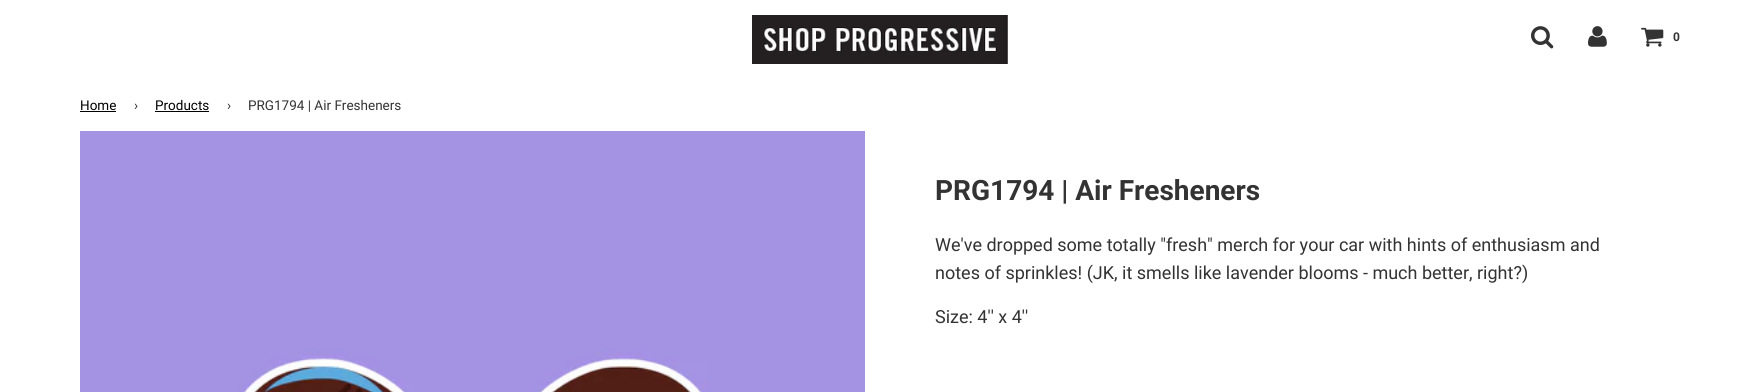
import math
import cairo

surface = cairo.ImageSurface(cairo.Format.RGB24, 1760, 392)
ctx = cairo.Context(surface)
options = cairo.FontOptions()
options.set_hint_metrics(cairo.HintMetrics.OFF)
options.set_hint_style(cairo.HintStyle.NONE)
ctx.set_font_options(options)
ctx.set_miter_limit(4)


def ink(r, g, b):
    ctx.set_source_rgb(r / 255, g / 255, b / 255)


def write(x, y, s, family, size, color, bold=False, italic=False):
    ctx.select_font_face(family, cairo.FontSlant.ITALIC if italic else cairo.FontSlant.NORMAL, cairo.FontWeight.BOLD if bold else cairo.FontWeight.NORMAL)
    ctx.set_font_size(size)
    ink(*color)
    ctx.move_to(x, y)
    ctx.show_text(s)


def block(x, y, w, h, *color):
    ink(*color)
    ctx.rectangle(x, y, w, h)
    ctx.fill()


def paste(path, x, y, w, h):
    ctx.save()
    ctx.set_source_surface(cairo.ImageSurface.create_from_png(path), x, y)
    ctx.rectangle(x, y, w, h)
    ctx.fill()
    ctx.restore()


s1 = dict(family="Roboto", size=12, color=(51, 51, 51), bold=True)
s2 = dict(family="Roboto", size=13.5, color=(0, 0, 0))
s3 = dict(family="Roboto", size=13.5, color=(51, 51, 51))
s4 = dict(family="Roboto", size=28, color=(51, 51, 51), bold=True)
s5 = dict(family="Roboto", size=18, color=(51, 51, 51))

ink(255, 255, 255)
ctx.paint()
paste("pic1.png", 752, 15, 256, 49)
paste("pic2.png", 1531, 26, 23, 23)
paste("pic3.png", 1588, 26, 19, 21)
paste("pic4.png", 1641, 27, 23, 20)
write(1673, 41, "0", **s1)
write(80, 110, "Home", **s2)
block(80, 111, 36, 1, 0, 0, 0)
write(134, 110, "›", **s3)
write(155, 110, "Products", **s2)
block(155, 111, 54, 1, 0, 0, 0)
write(227, 110, "›", **s3)
write(248, 110, "PRG1794 | Air Fresheners", **s3)
paste("pic5.png", 80, 131, 785, 261)
write(935, 200, "PRG1794 | Air Fresheners", **s4)
write(935, 251, "We've dropped some totally \"fresh\" merch for your car with hints of enthusiasm and", **s5)
write(935, 279, "notes of sprinkles! (JK, it smells like lavender blooms - much better, right?)", **s5)
write(935, 323, "Size: 4'' x 4''", **s5)
surface.write_to_png("screenshot.png")
